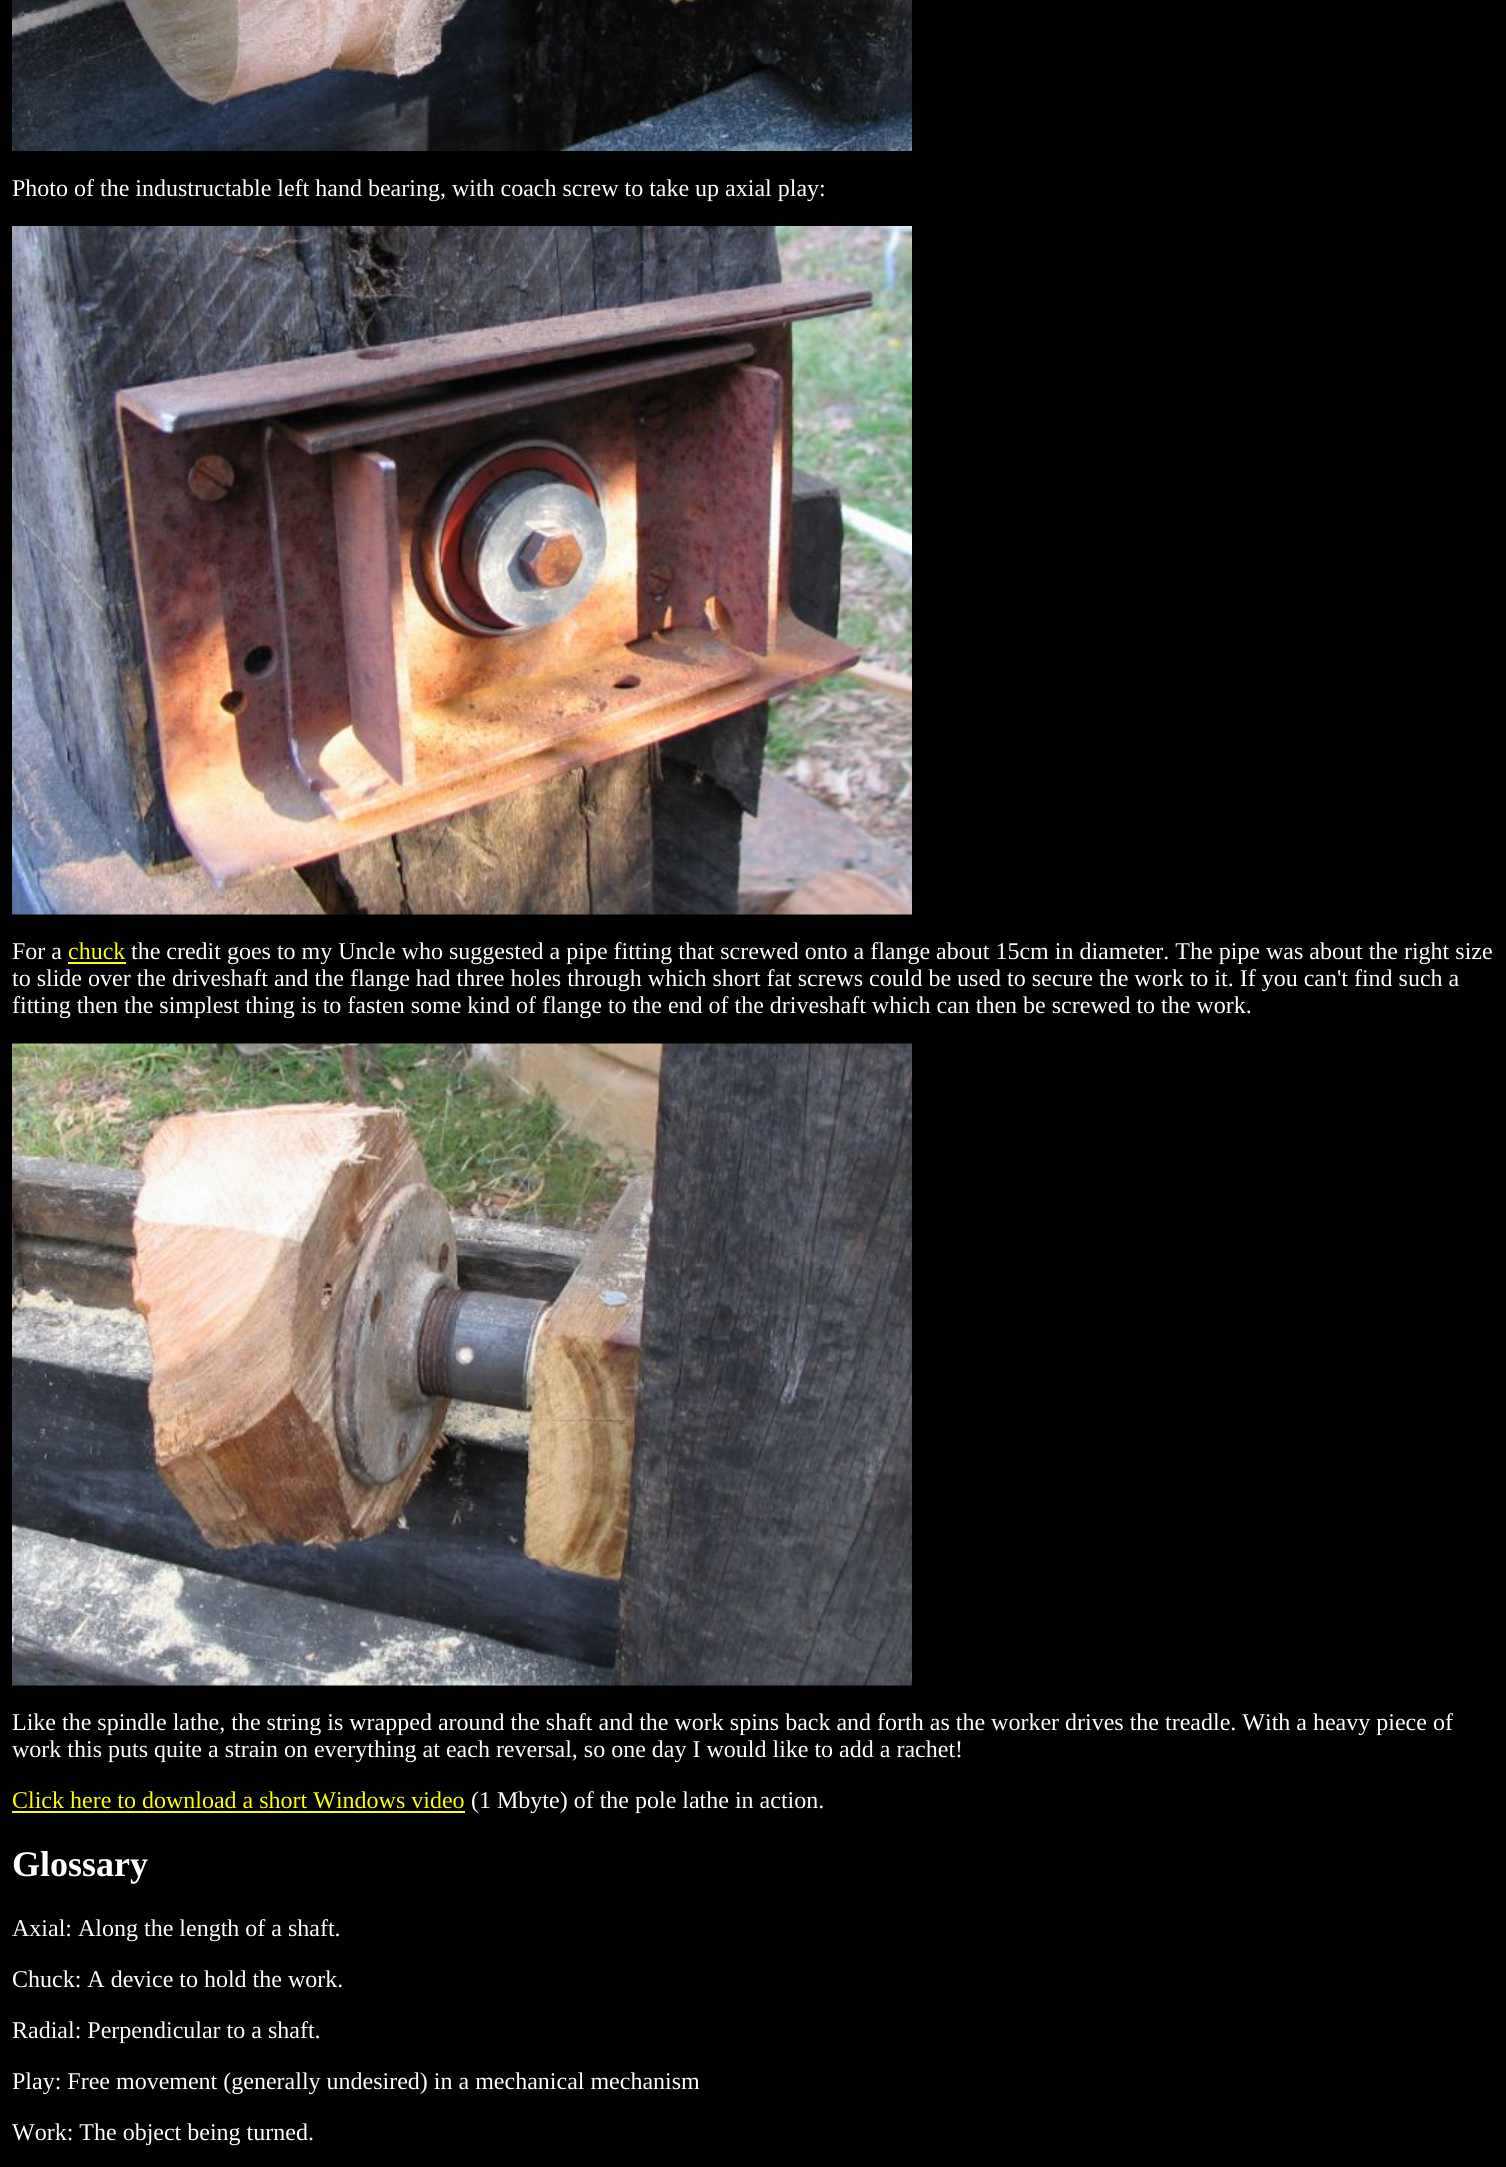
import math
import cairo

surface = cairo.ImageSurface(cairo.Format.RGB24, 1506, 2167)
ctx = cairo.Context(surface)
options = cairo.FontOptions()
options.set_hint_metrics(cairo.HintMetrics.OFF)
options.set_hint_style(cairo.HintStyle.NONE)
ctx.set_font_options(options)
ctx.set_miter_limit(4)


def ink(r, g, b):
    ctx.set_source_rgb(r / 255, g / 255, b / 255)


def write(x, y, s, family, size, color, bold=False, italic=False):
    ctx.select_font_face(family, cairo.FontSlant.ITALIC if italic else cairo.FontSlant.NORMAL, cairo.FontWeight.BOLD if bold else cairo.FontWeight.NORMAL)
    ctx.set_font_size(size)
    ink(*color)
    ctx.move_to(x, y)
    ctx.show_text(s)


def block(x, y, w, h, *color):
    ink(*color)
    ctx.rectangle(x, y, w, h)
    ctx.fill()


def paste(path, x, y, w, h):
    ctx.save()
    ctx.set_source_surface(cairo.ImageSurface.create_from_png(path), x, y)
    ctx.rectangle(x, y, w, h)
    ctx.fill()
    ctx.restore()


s1 = dict(family="Liberation Serif", size=24, color=(255, 255, 255))
s2 = dict(family="Liberation Serif", size=24, color=(255, 255, 0))
s3 = dict(family="Liberation Serif", size=36, color=(255, 255, 255), bold=True)

ink(0, 0, 0)
ctx.paint()
paste("pic1.png", 12, 0, 900, 151)
write(12, 196, "Photo of the industructable left hand bearing, with coach screw to take up axial play:", **s1)
paste("pic2.png", 12, 226, 900, 689)
write(12, 959, "For a", **s1)
write(68, 959, "chuck", **s2)
block(68, 962, 58, 2, 255, 255, 0)
write(131, 959, "the credit goes to my Uncle who suggested a pipe fitting that screwed onto a flange about 15cm in diameter. The pipe was about the right size", **s1)
write(12, 986, "to slide over the driveshaft and the flange had three holes through which short fat screws could be used to secure the work to it. If you can't find such a", **s1)
write(12, 1013, "fitting then the simplest thing is to fasten some kind of flange to the end of the driveshaft which can then be screwed to the work.", **s1)
paste("pic3.png", 12, 1043, 900, 643)
write(12, 1730, "Like the spindle lathe, the string is wrapped around the shaft and the work spins back and forth as the worker drives the treadle. With a heavy piece of", **s1)
write(12, 1757, "work this puts quite a strain on everything at each reversal, so one day I would like to add a rachet!", **s1)
write(12, 1808, "Click here to download a short Windows video", **s2)
block(12, 1811, 453, 2, 255, 255, 0)
write(471, 1808, "(1 Mbyte) of the pole lathe in action.", **s1)
write(12, 1876, "Glossary", **s3)
write(12, 1936, "Axial: Along the length of a shaft.", **s1)
write(12, 1987, "Chuck: A device to hold the work.", **s1)
write(12, 2038, "Radial: Perpendicular to a shaft.", **s1)
write(12, 2089, "Play: Free movement (generally undesired) in a mechanical mechanism", **s1)
write(12, 2140, "Work: The object being turned.", **s1)
surface.write_to_png("screenshot.png")
